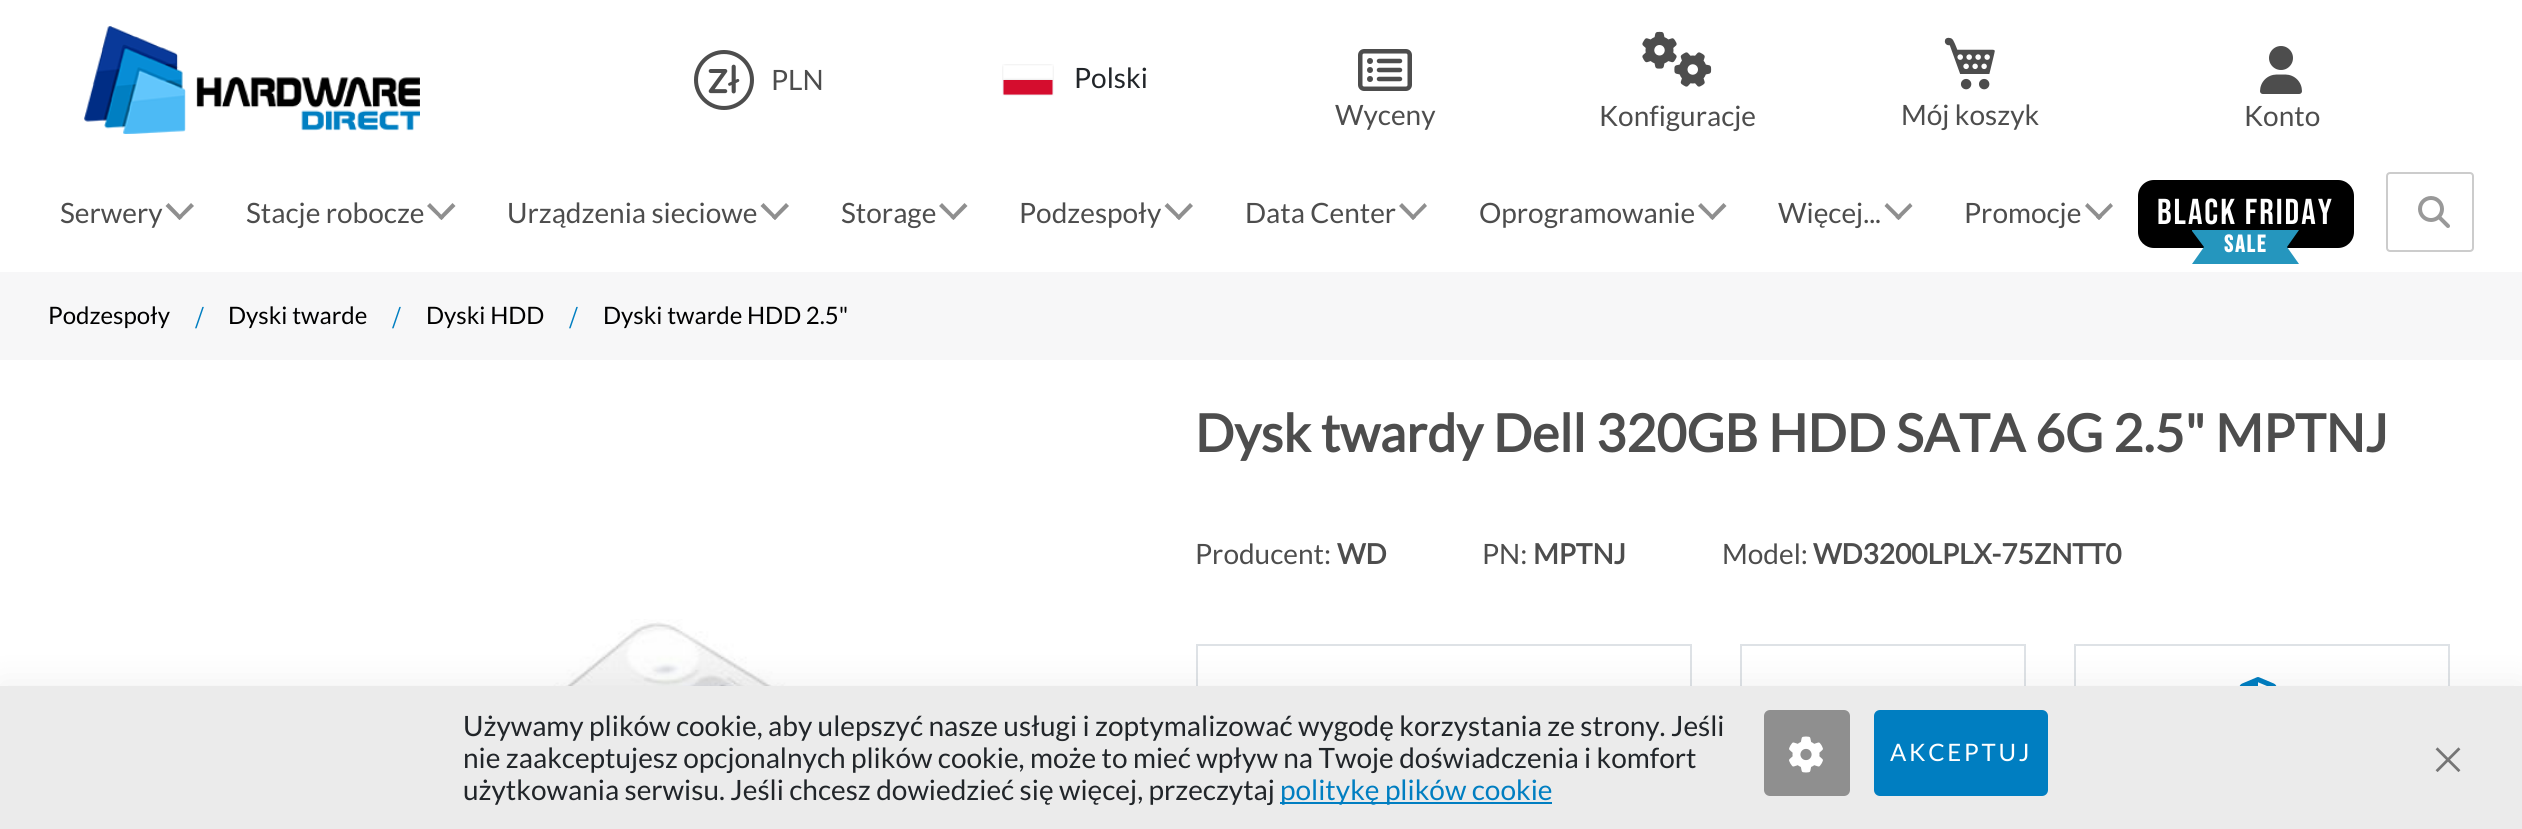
import math
import cairo

surface = cairo.ImageSurface(cairo.Format.RGB24, 2522, 829)
ctx = cairo.Context(surface)
options = cairo.FontOptions()
options.set_hint_metrics(cairo.HintMetrics.OFF)
options.set_hint_style(cairo.HintStyle.NONE)
ctx.set_font_options(options)
ctx.set_miter_limit(4)


def ink(r, g, b):
    ctx.set_source_rgb(r / 255, g / 255, b / 255)


def write(x, y, s, family, size, color, bold=False, italic=False):
    ctx.select_font_face(family, cairo.FontSlant.ITALIC if italic else cairo.FontSlant.NORMAL, cairo.FontWeight.BOLD if bold else cairo.FontWeight.NORMAL)
    ctx.set_font_size(size)
    ink(*color)
    ctx.move_to(x, y)
    ctx.show_text(s)


def write_spaced(x, y, s, letter, word):
    ctx.move_to(x, y)
    for ch in s:
        ctx.show_text(ch)
        ctx.rel_move_to(letter + word * (ch == ' '), 0)


def block(x, y, w, h, *color):
    ink(*color)
    ctx.rectangle(x, y, w, h)
    ctx.fill()


def round_path(x, y, w, h, r):
    ctx.new_sub_path()
    for i, (u, v) in enumerate([(x + w - r, y + h - r), (x + r, y + h - r), (x + r, y + r), (x + w - r, y + r)]):
        ctx.arc(u, v, r, i * math.pi / 2, (i + 1) * math.pi / 2)
    ctx.close_path()


def blur_box(x, y, w, h, r, blur, alpha):
    ctx.push_group_with_content(cairo.Content.ALPHA)
    ctx.set_operator(cairo.Operator.SOURCE)
    for i in range(15, -16, -2):
        e = blur * i / 6
        if min(w, h) + 2 * e > 0:
            ctx.set_source_rgba(0, 0, 0, alpha * math.erfc((i - 1) / 8.5) / 2)
            round_path(x - e, y - e, w + 2 * e, h + 2 * e, max(0, min(r + e + blur * .6, min(w, h) / 2 + e)))
            ctx.fill()
    ctx.mask(ctx.pop_group())


def paste(path, x, y, w, h):
    ctx.save()
    ctx.set_source_surface(cairo.ImageSurface.create_from_png(path), x, y)
    ctx.rectangle(x, y, w, h)
    ctx.fill()
    ctx.restore()


s1 = dict(family="Lato", size=28, color=(77, 77, 77))
s2 = dict(family="Lato", size=28, color=(33, 37, 41))
s3 = dict(family="Lato", size=24, color=(0, 0, 0))
s4 = dict(family="Liberation Serif", size=32, color=(0, 126, 193))
s5 = dict(family="Lato", size=52, color=(77, 77, 77), bold=True)
s6 = dict(family="Lato", size=28, color=(77, 77, 77), bold=True)
s7 = dict(family="Lato", size=28, color=(0, 126, 193))

ink(255, 255, 255)
ctx.paint()
paste("pic1.png", 84, 26, 336, 108)
paste("pic2.png", 694, 50, 60, 60)
write(771, 90, "PLN", **s1)
paste("pic3.png", 1002, 64, 52, 32)
write(1074, 88, "Polski", **s2)
paste("pic4.png", 1358, 49, 54, 42)
write(1335, 125, "Wyceny", **s1)
paste("pic5.png", 1642, 31, 70, 56)
write(1599, 126, "Konfiguracje", **s1)
paste("pic6.png", 1944, 37, 51, 53)
write(1901, 125, "Mój koszyk", **s1)
paste("pic7.png", 2260, 46, 42, 48)
write(2244, 126, "Konto", **s1)
write(60, 223, "Serwery", **s1)
ink(143, 143, 143)
ctx.new_path()
ctx.move_to(194, 206)
ctx.line_to(179.5, 220)
ctx.line_to(177, 217.5)
ctx.line_to(191, 203)
ctx.close_path()
ctx.fill()
ctx.new_path()
ctx.move_to(182.5, 217.5)
ctx.line_to(179.5, 220)
ctx.line_to(165.5, 206)
ctx.line_to(168.5, 203)
ctx.close_path()
ctx.fill()
write(246, 223, "Stacje robocze", **s1)
ink(143, 143, 143)
ctx.new_path()
ctx.move_to(455.5, 206)
ctx.line_to(441.5, 220)
ctx.line_to(438.5, 217.5)
ctx.line_to(452.5, 203)
ctx.close_path()
ctx.fill()
ctx.new_path()
ctx.move_to(444, 217.5)
ctx.line_to(441.5, 220)
ctx.line_to(427, 206)
ctx.line_to(430, 203)
ctx.close_path()
ctx.fill()
write(507, 223, "Urządzenia sieciowe", **s1)
ink(143, 143, 143)
ctx.new_path()
ctx.move_to(789, 206)
ctx.line_to(775, 220)
ctx.line_to(772, 217.5)
ctx.line_to(786, 203)
ctx.close_path()
ctx.fill()
ctx.new_path()
ctx.move_to(777.5, 217.5)
ctx.line_to(775, 220)
ctx.line_to(760.5, 206)
ctx.line_to(763.5, 203)
ctx.close_path()
ctx.fill()
write(841, 223, "Storage", **s1)
ink(143, 143, 143)
ctx.new_path()
ctx.move_to(967.5, 206)
ctx.line_to(953.5, 220)
ctx.line_to(950.5, 217.5)
ctx.line_to(964.5, 203)
ctx.close_path()
ctx.fill()
ctx.new_path()
ctx.move_to(956, 217.5)
ctx.line_to(953.5, 220)
ctx.line_to(939, 206)
ctx.line_to(942, 203)
ctx.close_path()
ctx.fill()
write(1019, 223, "Podzespoły", **s1)
ink(143, 143, 143)
ctx.new_path()
ctx.move_to(1193, 206)
ctx.line_to(1179, 220)
ctx.line_to(1176, 217.5)
ctx.line_to(1190, 203)
ctx.close_path()
ctx.fill()
ctx.new_path()
ctx.move_to(1181.5, 217.5)
ctx.line_to(1179, 220)
ctx.line_to(1164.5, 206)
ctx.line_to(1167.5, 203)
ctx.close_path()
ctx.fill()
write(1245, 223, "Data Center", **s1)
ink(143, 143, 143)
ctx.new_path()
ctx.move_to(1427, 206)
ctx.line_to(1413, 220)
ctx.line_to(1410.5, 217.5)
ctx.line_to(1424.5, 203)
ctx.close_path()
ctx.fill()
ctx.new_path()
ctx.move_to(1416, 217.5)
ctx.line_to(1413, 220)
ctx.line_to(1399, 206)
ctx.line_to(1402, 203)
ctx.close_path()
ctx.fill()
write(1479, 223, "Oprogramowanie", **s1)
ink(143, 143, 143)
ctx.new_path()
ctx.move_to(1726.5, 206)
ctx.line_to(1712.5, 220)
ctx.line_to(1709.5, 217.5)
ctx.line_to(1723.5, 203)
ctx.close_path()
ctx.fill()
ctx.new_path()
ctx.move_to(1715, 217.5)
ctx.line_to(1712.5, 220)
ctx.line_to(1698, 206)
ctx.line_to(1701, 203)
ctx.close_path()
ctx.fill()
write(1778, 223, "Więcej...", **s1)
ink(143, 143, 143)
ctx.new_path()
ctx.move_to(1912.5, 206)
ctx.line_to(1898.5, 220)
ctx.line_to(1895.5, 217.5)
ctx.line_to(1910, 203)
ctx.close_path()
ctx.fill()
ctx.new_path()
ctx.move_to(1901.5, 217.5)
ctx.line_to(1898.5, 220)
ctx.line_to(1884.5, 206)
ctx.line_to(1887, 203)
ctx.close_path()
ctx.fill()
write(1964, 223, "Promocje", **s1)
ink(143, 143, 143)
ctx.new_path()
ctx.move_to(2113, 206)
ctx.line_to(2099, 220)
ctx.line_to(2096, 217.5)
ctx.line_to(2110.5, 203)
ctx.close_path()
ctx.fill()
ctx.new_path()
ctx.move_to(2102, 217.5)
ctx.line_to(2099, 220)
ctx.line_to(2085, 206)
ctx.line_to(2087.5, 203)
ctx.close_path()
ctx.fill()
ink(0, 0, 0)
round_path(2138, 180, 216, 68, 16)
ctx.fill()
ctx.select_font_face("Bebas Neue")
ctx.set_font_size(36)
ink(255, 255, 255)
write_spaced(2157, 224, "BLACK FRIDAY", 2, 0)
ink(37, 150, 190)
ctx.new_path()
ctx.move_to(2192, 231)
ctx.line_to(2192, 230)
ctx.line_to(2299, 230)
ctx.line_to(2287, 247)
ctx.line_to(2299, 264)
ctx.line_to(2192, 264)
ctx.line_to(2204, 247)
ctx.close_path()
ctx.fill()
ctx.select_font_face("Bebas Neue", cairo.FontSlant.NORMAL, cairo.FontWeight.BOLD)
ctx.set_font_size(24)
ink(255, 255, 255)
write_spaced(2224, 252, "SALE", 2, 0)
round_path(2387, 173, 86, 78, 3)
ink(204, 204, 204)
ctx.stroke()
paste("pic8.png", 2418, 196, 32, 32)
block(0, 272, 2522, 88, 247, 247, 248)
write(48, 324, "Podzespoły", **s3)
write(195, 328, "/", **s4)
write(228, 324, "Dyski twarde", **s3)
write(392, 328, "/", **s4)
write(426, 324, "Dyski HDD", **s3)
write(569, 328, "/", **s4)
write(603, 324, "Dyski twarde HDD 2.5\"", **s3)
write(1195, 452, "Dysk twardy Dell 320GB HDD SATA 6G 2.5\" MPTNJ", **s5)
write(1195, 564, "Producent:", **s1)
write(1337, 564, "WD", **s6)
write(1482, 564, "PN:", **s1)
write(1533, 564, "MPTNJ", **s6)
write(1722, 564, "Model:", **s1)
write(1813, 564, "WD3200LPLX-75ZNTT0", **s6)
ctx.rectangle(1197, 645, 494, 180)
ink(222, 226, 230)
ctx.stroke()
ctx.rectangle(1741, 645, 284, 180)
ctx.stroke()
ctx.rectangle(2075, 645, 374, 180)
ctx.stroke()
paste("pic9.png", 2239, 677, 38, 9)
paste("pic10.png", 387, 619, 621, 67)
ink(0, 0, 0)
blur_box(0, 682, 2522, 144, 0, 18, 0.06)
block(0, 686, 2522, 143, 235, 235, 235)
write(463, 736, "Używamy plików cookie, aby ulepszyć nasze usługi i zoptymalizować wygodę korzystania ze strony. Jeśli", **s2)
write(463, 768, "nie zaakceptujesz opcjonalnych plików cookie, może to mieć wpływ na Twoje doświadczenia i komfort", **s2)
write(463, 800, "użytkowania serwisu. Jeśli chcesz dowiedzieć się więcej, przeczytaj", **s2)
block(1280, 802, 272, 2, 0, 126, 193)
write(1280, 800, "politykę plików cookie", **s7)
ink(143, 143, 143)
round_path(1764, 710, 86, 86, 6)
ctx.fill()
paste("pic11.png", 1789, 736, 34, 37)
ink(0, 126, 193)
round_path(1874, 710, 174, 86, 6)
ctx.fill()
ctx.set_font_size(24)
ink(255, 255, 255)
write_spaced(1890, 761, "AKCEPTUJ", 2.75, 0)
paste("pic12.png", 2435, 747, 26, 25)
surface.write_to_png("screenshot.png")
